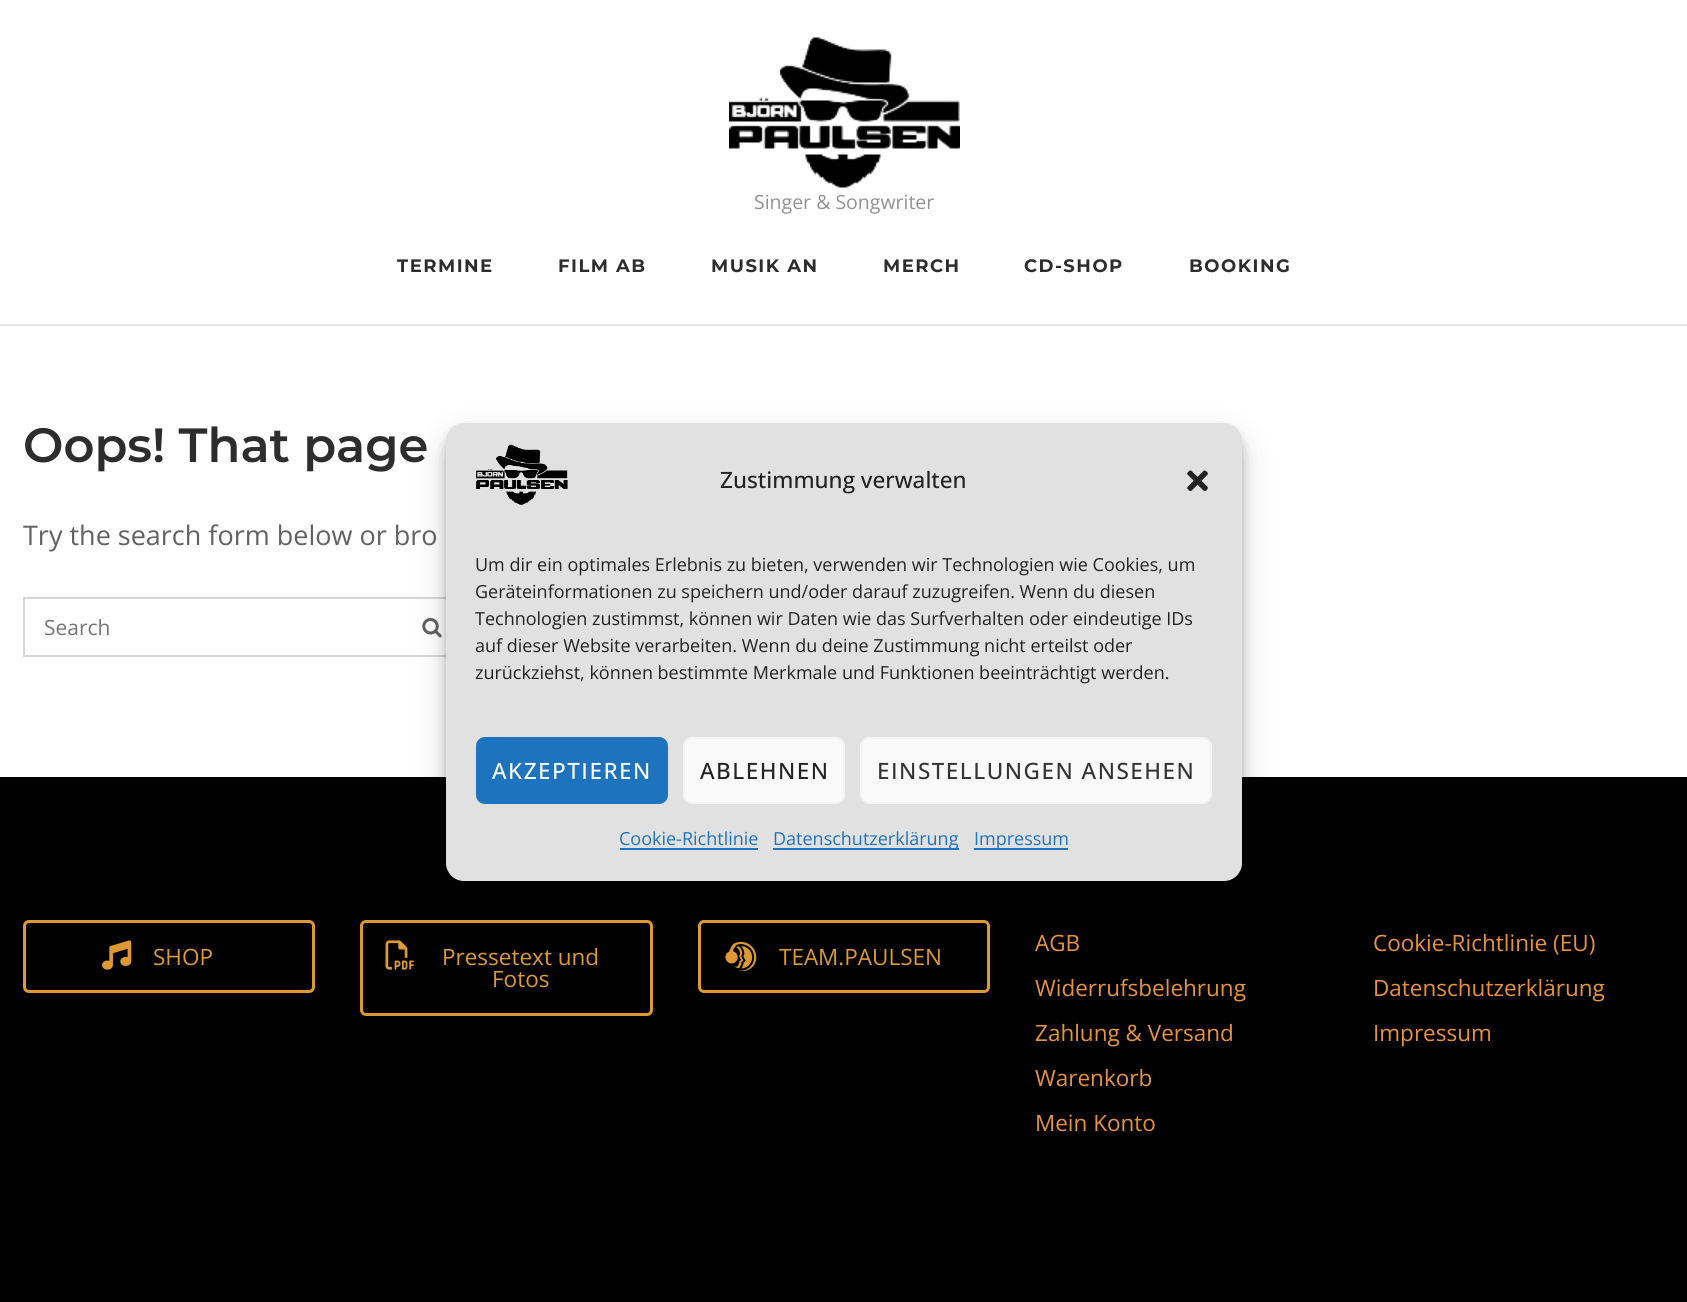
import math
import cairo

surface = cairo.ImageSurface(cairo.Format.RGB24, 1687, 1302)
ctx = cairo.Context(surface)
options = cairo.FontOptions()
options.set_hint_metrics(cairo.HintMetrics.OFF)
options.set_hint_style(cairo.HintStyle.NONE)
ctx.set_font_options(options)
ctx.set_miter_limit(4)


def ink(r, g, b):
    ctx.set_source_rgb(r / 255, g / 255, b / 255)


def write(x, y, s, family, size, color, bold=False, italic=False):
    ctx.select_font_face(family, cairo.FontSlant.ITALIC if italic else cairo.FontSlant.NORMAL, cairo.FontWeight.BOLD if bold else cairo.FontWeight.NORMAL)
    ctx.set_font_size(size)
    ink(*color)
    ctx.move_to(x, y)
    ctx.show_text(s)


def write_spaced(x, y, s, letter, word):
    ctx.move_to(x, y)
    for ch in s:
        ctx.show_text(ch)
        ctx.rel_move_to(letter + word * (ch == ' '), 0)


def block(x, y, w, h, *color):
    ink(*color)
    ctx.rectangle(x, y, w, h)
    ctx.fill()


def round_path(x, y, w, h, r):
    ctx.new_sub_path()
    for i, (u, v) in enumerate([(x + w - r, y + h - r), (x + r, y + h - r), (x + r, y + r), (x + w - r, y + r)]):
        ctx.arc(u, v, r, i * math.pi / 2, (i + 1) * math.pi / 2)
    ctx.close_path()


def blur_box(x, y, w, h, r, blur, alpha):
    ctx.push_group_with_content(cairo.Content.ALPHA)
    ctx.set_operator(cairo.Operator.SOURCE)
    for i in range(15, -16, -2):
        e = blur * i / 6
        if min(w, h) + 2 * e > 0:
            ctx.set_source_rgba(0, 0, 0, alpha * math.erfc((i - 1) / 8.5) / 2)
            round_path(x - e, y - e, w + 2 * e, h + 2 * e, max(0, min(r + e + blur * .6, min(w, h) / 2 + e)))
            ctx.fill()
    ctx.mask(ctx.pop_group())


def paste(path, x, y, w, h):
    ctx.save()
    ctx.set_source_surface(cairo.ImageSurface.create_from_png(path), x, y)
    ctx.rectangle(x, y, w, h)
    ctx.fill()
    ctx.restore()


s1 = dict(family="Open Sans", size=19.5, color=(146, 146, 146))
s2 = dict(family="Montserrat SemiBold", size=48, color=(45, 45, 45))
s3 = dict(family="Open Sans", size=27, color=(98, 98, 98))
s4 = dict(family="Open Sans", size=21, color=(117, 117, 117))
s5 = dict(family="Open Sans", size=22.5, color=(221, 153, 51))
s6 = dict(family="Open Sans", size=22.5, color=(231, 147, 60))
s7 = dict(family="Open Sans Medium", size=22.5, color=(34, 34, 34))
s8 = dict(family="Open Sans", size=18, color=(34, 34, 34))
s9 = dict(family="Open Sans", size=18, color=(30, 115, 190))

ink(255, 255, 255)
ctx.paint()
block(0, 324, 1687, 2, 230, 230, 230)
paste("pic1.png", 729, 37, 231, 151)
write(754, 209, "Singer & Songwriter", **s1)
ctx.select_font_face("Montserrat", cairo.FontSlant.NORMAL, cairo.FontWeight.BOLD)
ctx.set_font_size(18)
ink(45, 45, 45)
write_spaced(397, 272, "TERMINE", 1.5, 0)
write_spaced(558, 272, "FILM AB", 1.5, 0)
write_spaced(711, 272, "MUSIK AN", 1.5, 0)
write_spaced(883, 272, "MERCH", 1.5, 0)
write_spaced(1024, 272, "CD-SHOP", 1.5, 0)
write_spaced(1189, 272, "BOOKING", 1.5, 0)
write(23, 462, "Oops! That page", **s2)
write(23, 545, "Try the search form below or bro", **s3)
ctx.rectangle(24, 598, 448, 58)
ink(214, 214, 214)
ctx.stroke()
write(44, 635, "Search", **s4)
paste("pic2.png", 422, 618, 20, 20)
block(0, 777, 1687, 525, 0, 0, 0)
round_path(24.5, 921.5, 289, 70, 4.5)
ink(221, 153, 51)
ctx.set_line_width(3)
ctx.stroke()
paste("pic3.png", 102, 940, 30, 30)
write(153, 965, "SHOP", **s5)
round_path(361.5, 921.5, 290, 93, 4.5)
ctx.stroke()
paste("pic4.png", 385, 940, 29, 30)
write(442, 965, "Pressetext und", **s5)
write(492, 987, "Fotos", **s5)
round_path(699.5, 921.5, 289, 70, 4.5)
ctx.stroke()
paste("pic5.png", 725, 941, 32, 31)
write(779, 965, "TEAM.PAULSEN", **s5)
write(1035, 951, "AGB", **s6)
write(1035, 996, "Widerrufsbelehrung", **s6)
write(1035, 1041, "Zahlung & Versand", **s6)
write(1035, 1086, "Warenkorb", **s6)
write(1035, 1131, "Mein Konto", **s6)
write(1373, 951, "Cookie-Richtlinie (EU)", **s6)
write(1373, 996, "Datenschutzerklärung", **s6)
write(1373, 1041, "Impressum", **s6)
ink(0, 0, 0)
blur_box(446, 432, 796, 458, 18, 4.5, 0.23)
blur_box(446, 438, 796, 458, 18, 15, 0.19)
ink(225, 225, 225)
round_path(446, 423, 796, 458, 18)
ctx.fill()
paste("pic6.png", 476, 444, 92, 61)
write(720, 488, "Zustimmung verwalten", **s7)
paste("pic7.png", 1187, 470, 21, 22)
write(475, 571, "Um dir ein optimales Erlebnis zu bieten, verwenden wir Technologien wie Cookies, um", **s8)
write(475, 598, "Geräteinformationen zu speichern und/oder darauf zuzugreifen. Wenn du diesen", **s8)
write(475, 625, "Technologien zustimmst, können wir Daten wie das Surfverhalten oder eindeutige IDs", **s8)
write(475, 652, "auf dieser Website verarbeiten. Wenn du deine Zustimmung nicht erteilst oder", **s8)
write(475, 679, "zurückziehst, können bestimmte Merkmale und Funktionen beeinträchtigt werden.", **s8)
ink(30, 115, 190)
round_path(477, 738, 190, 65, 8)
ctx.fill_preserve()
ctx.set_line_width(2)
ctx.stroke()
ctx.select_font_face("Open Sans Medium")
ctx.set_font_size(22.5)
ink(255, 255, 255)
write_spaced(492, 779, "AKZEPTIEREN", 1.5, 0)
ink(249, 249, 249)
round_path(684, 738, 160, 65, 8)
ctx.fill_preserve()
ink(242, 242, 242)
ctx.stroke()
ink(34, 34, 34)
write_spaced(700, 779, "ABLEHNEN", 1.5, 0)
ink(249, 249, 249)
round_path(861, 738, 350, 65, 8)
ctx.fill_preserve()
ink(242, 242, 242)
ctx.stroke()
ink(51, 51, 51)
write_spaced(877, 779, "EINSTELLUNGEN ANSEHEN", 1.5, 0)
write(619, 845, "Cookie-Richtlinie", **s9)
block(620, 848, 138, 2, 30, 115, 190)
block(773, 848, 186, 2, 30, 115, 190)
write(773, 845, "Datenschutzerklärung", **s9)
block(974, 848, 94, 2, 30, 115, 190)
write(974, 845, "Impressum", **s9)
surface.write_to_png("screenshot.png")
